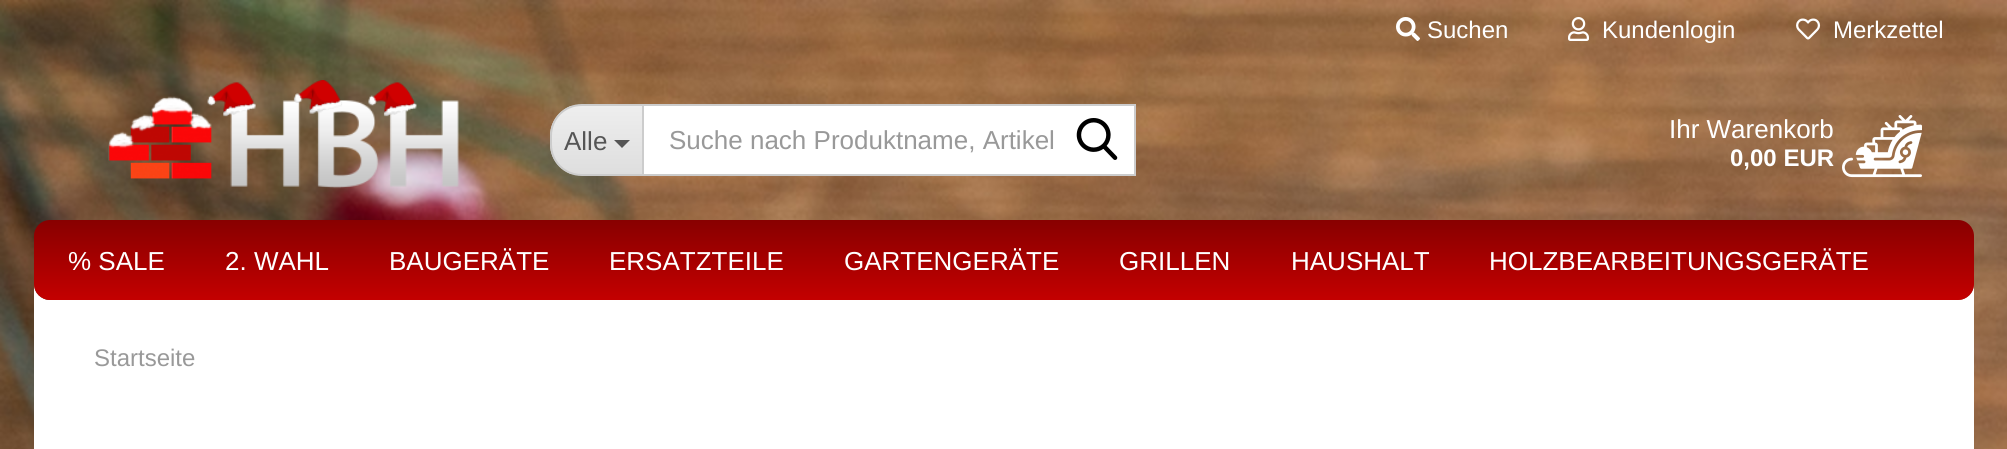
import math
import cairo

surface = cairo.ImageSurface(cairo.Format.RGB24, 2007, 449)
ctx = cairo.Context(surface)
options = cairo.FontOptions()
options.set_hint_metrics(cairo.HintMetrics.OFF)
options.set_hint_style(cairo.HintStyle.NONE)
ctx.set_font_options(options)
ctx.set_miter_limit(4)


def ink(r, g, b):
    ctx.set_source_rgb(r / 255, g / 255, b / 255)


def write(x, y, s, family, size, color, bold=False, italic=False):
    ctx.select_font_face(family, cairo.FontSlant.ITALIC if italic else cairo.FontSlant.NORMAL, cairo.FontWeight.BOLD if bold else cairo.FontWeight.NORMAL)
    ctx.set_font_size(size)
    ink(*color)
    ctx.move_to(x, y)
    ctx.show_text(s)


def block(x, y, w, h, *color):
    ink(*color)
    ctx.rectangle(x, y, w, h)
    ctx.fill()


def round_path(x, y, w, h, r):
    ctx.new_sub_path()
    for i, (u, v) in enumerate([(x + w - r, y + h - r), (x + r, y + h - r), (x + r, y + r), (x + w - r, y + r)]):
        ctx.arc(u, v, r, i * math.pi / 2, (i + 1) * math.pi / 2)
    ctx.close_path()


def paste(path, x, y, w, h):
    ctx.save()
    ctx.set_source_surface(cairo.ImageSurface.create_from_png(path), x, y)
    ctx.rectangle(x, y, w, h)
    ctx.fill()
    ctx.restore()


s1 = dict(family="Liberation Sans", size=24, color=(255, 255, 255))
s2 = dict(family="Liberation Sans", size=26, color=(85, 85, 85))
s3 = dict(family="Liberation Sans", size=26, color=(153, 153, 153))
s4 = dict(family="Liberation Sans", size=26, color=(255, 255, 255))
s5 = dict(family="Liberation Sans", size=24, color=(255, 255, 255), bold=True)
s6 = dict(family="Liberation Sans", size=24, color=(153, 153, 153))

ink(255, 255, 255)
ctx.paint()
paste("pic1.png", 0, 0, 2007, 449)
block(34, 284, 1940, 165, 255, 255, 255)
paste("pic2.png", 34, 0, 1940, 300)
paste("pic3.png", 1396, 17, 24, 24)
write(1427, 38, "Suchen", **s1)
paste("pic4.png", 1568, 17, 21, 24)
write(1602, 38, "Kundenlogin", **s1)
paste("pic5.png", 1796, 18, 25, 22)
write(1833, 38, "Merkzettel", **s1)
paste("pic6.png", 108, 80, 351, 109)
ctx.save()
ctx.new_path()
ctx.move_to(582, 104)
ctx.line_to(642, 104)
ctx.line_to(642, 176)
ctx.line_to(582, 176)
ctx.curve_to(564.5, 176, 550, 161.5, 550, 144)
ctx.line_to(550, 136)
ctx.curve_to(550, 118.5, 564.5, 104, 582, 104)
ctx.close_path()
ctx.clip()
gradient = cairo.LinearGradient(597, 106, 597, 174)
gradient.add_color_stop_rgba(0, 0.933, 0.933, 0.933, 1)
gradient.add_color_stop_rgba(1, 0.871, 0.871, 0.871, 1)
ctx.set_source(gradient)
ctx.rectangle(550, 106, 92, 68)
ctx.fill()
ctx.restore()
ink(204, 204, 204)
ctx.set_fill_rule(cairo.FillRule.EVEN_ODD)
ctx.new_path()
ctx.move_to(582, 104)
ctx.line_to(642, 104)
ctx.line_to(642, 176)
ctx.line_to(582, 176)
ctx.curve_to(564, 176, 550, 162, 550, 144)
ctx.line_to(550, 136)
ctx.curve_to(550, 118, 564, 104, 582, 104)
ctx.close_path()
ctx.move_to(582, 106)
ctx.line_to(642, 106)
ctx.line_to(642, 174)
ctx.line_to(582, 174)
ctx.curve_to(565, 174, 552, 161, 552, 144)
ctx.line_to(552, 136)
ctx.curve_to(552, 119, 565, 106, 582, 106)
ctx.close_path()
ctx.fill()
write(564, 150, "Alle", **s2)
ctx.set_fill_rule(cairo.FillRule.WINDING)
ctx.new_path()
ctx.move_to(614, 140)
ctx.line_to(630, 140)
ctx.line_to(622, 148)
ctx.close_path()
ctx.fill()
ink(255, 255, 255)
ctx.rectangle(643, 105, 492, 70)
ctx.fill_preserve()
ink(204, 204, 204)
ctx.stroke()
write(669, 149, "Suche nach Produktname, Artikel", **s3)
paste("pic7.png", 1076, 118, 42, 42)
write(1669, 138, "Ihr Warenkorb", **s4)
write(1730, 166, "0,00 EUR", **s5)
paste("pic8.png", 1842, 115, 80, 63)
gradient = cairo.LinearGradient(1004, 220, 1004, 380)
gradient.add_color_stop_rgba(0, 0.533, 0, 0, 1)
gradient.add_color_stop_rgba(1, 1, 0, 0, 1)
ctx.set_source(gradient)
round_path(34, 220, 1940, 80, 16)
ctx.fill()
write(68, 270, "% SALE", **s4)
write(225, 270, "2. WAHL", **s4)
write(389, 270, "BAUGERÄTE", **s4)
write(609, 270, "ERSATZTEILE", **s4)
write(844, 270, "GARTENGERÄTE", **s4)
write(1119, 270, "GRILLEN", **s4)
write(1291, 270, "HAUSHALT", **s4)
write(1489, 270, "HOLZBEARBEITUNGSGERÄTE", **s4)
write(94, 366, "Startseite", **s6)
surface.write_to_png("screenshot.png")
